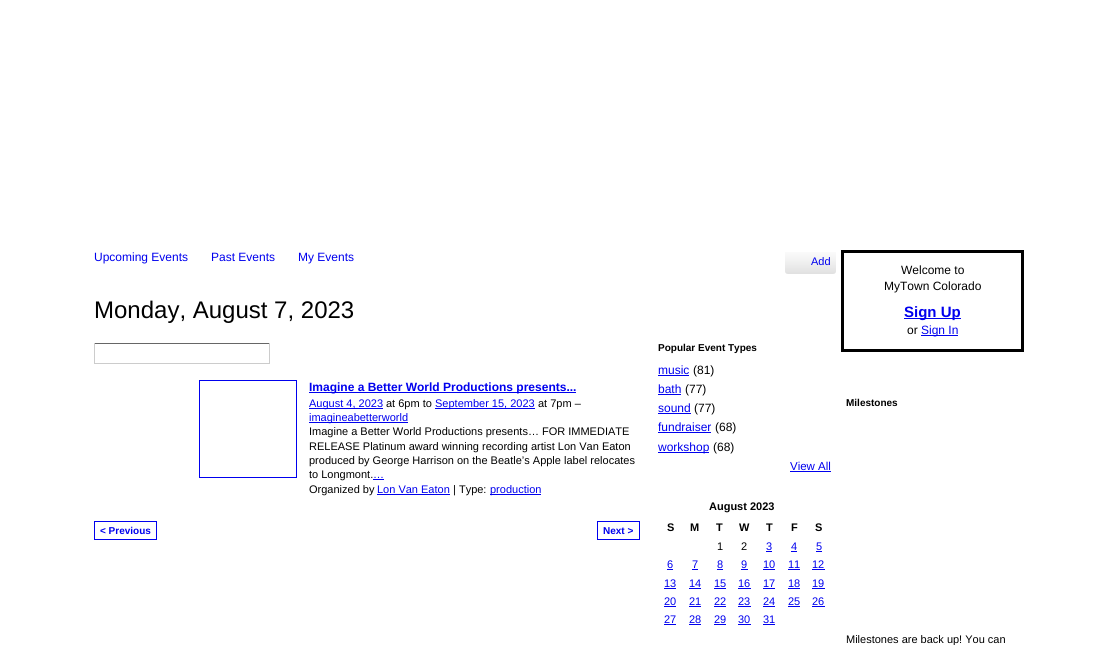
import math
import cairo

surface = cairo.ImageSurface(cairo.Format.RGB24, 1113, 645)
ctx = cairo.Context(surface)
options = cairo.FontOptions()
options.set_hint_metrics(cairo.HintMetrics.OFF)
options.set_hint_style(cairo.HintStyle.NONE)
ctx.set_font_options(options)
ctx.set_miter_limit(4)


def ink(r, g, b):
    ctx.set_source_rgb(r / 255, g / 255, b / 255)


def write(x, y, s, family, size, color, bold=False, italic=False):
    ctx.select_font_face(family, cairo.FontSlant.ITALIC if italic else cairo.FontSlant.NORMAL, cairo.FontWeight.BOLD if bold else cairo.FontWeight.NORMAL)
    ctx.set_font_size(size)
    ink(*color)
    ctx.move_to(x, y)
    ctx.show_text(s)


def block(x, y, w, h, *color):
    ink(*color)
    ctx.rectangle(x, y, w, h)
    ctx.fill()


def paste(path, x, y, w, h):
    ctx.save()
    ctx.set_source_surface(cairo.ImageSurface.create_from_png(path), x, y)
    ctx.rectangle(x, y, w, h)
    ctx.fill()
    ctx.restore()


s1 = dict(family="Liberation Sans", size=12, color=(0, 0, 238))
s2 = dict(family="Liberation Sans", size=11, color=(0, 0, 238))
s3 = dict(family="Liberation Sans", size=24, color=(0, 0, 0))
s4 = dict(family="Liberation Sans", size=12, color=(0, 0, 238), bold=True)
s5 = dict(family="Liberation Sans", size=11, color=(0, 0, 0))
s6 = dict(family="Liberation Sans", size=10, color=(0, 0, 238), bold=True)
s7 = dict(family="Liberation Sans", size=10, color=(0, 0, 0), bold=True)
s8 = dict(family="Liberation Sans", size=12, color=(0, 0, 0))
s9 = dict(family="Liberation Sans", size=11.5, color=(0, 0, 238))
s10 = dict(family="Liberation Sans", size=11, color=(0, 0, 0), bold=True)
s11 = dict(family="Liberation Sans", size=15, color=(0, 0, 238), bold=True)

ink(255, 255, 255)
ctx.paint()
write(94, 261, "Upcoming Events", **s1)
write(211, 261, "Past Events", **s1)
write(298, 261, "My Events", **s1)
paste("pic1.png", 785, 252, 51, 22)
write(811, 265, "Add", **s2)
write(94, 318, "Monday, August 7, 2023", **s3)
block(94, 343, 176, 1, 102, 102, 102)
block(269, 343, 1, 21, 204, 204, 204)
block(94, 363, 176, 1, 204, 204, 204)
block(94, 343, 1, 21, 204, 204, 204)
ctx.rectangle(199.5, 380.5, 97, 97)
ink(0, 0, 238)
ctx.set_line_width(1)
ctx.stroke()
block(309, 392, 267, 1, 0, 0, 238)
write(309, 391, "Imagine a Better World Productions presents...", **s4)
block(309, 408, 74, 1, 0, 0, 238)
write(309, 407, "August 4, 2023", **s2)
write(386, 407, "at 6pm to", **s5)
block(435, 408, 100, 1, 0, 0, 238)
write(435, 407, "September 15, 2023", **s2)
write(538, 407, "at 7pm –", **s5)
block(309, 422, 99, 1, 0, 0, 238)
write(309, 421, "imagineabetterworld", **s2)
write(309, 435, "Imagine a Better World Productions presents… FOR IMMEDIATE", **s5)
write(309, 450, "RELEASE Platinum award winning recording artist Lon Van Eaton", **s5)
write(309, 464, "produced by George Harrison on the Beatle’s Apple label relocates", **s5)
write(309, 478, "to Longmont.", **s5)
write(373, 478, "…", **s2)
block(373, 479, 11, 1, 0, 0, 238)
write(309, 493, "Organized by", **s5)
write(377, 493, "Lon Van Eaton", **s2)
block(377, 494, 73, 1, 0, 0, 238)
write(453, 493, "| Type:", **s5)
block(490, 494, 51, 1, 0, 0, 238)
write(490, 493, "production", **s2)
ctx.rectangle(94.5, 521.5, 62, 18)
ctx.stroke()
write(100, 534, "< Previous", **s6)
ctx.rectangle(597.5, 521.5, 42, 18)
ctx.stroke()
write(603, 534, "Next >", **s6)
write(658, 351, "Popular Event Types", **s7)
write(658, 374, "music", **s1)
block(658, 375, 31, 1, 0, 0, 238)
write(693, 374, "(81)", **s8)
write(658, 393, "bath", **s1)
block(658, 394, 23, 1, 0, 0, 238)
write(685, 393, "(77)", **s8)
write(658, 412, "sound", **s1)
block(658, 413, 33, 1, 0, 0, 238)
write(694, 412, "(77)", **s8)
write(658, 431, "fundraiser", **s1)
block(658, 432, 53, 1, 0, 0, 238)
write(715, 431, "(68)", **s8)
block(658, 452, 51, 1, 0, 0, 238)
write(658, 451, "workshop", **s1)
write(713, 451, "(68)", **s8)
write(790, 470, "View All", **s9)
block(790, 471, 41, 1, 0, 0, 238)
write(709, 510, "August 2023", **s10)
write(667, 531, "S", **s10)
write(690, 531, "M", **s10)
write(716, 531, "T", **s10)
write(739, 531, "W", **s10)
write(766, 531, "T", **s10)
write(791, 531, "F", **s10)
write(815, 531, "S", **s10)
write(717, 550, "1", **s5)
write(741, 550, "2", **s5)
write(766, 550, "3", **s2)
block(766, 551, 6, 1, 0, 0, 238)
write(791, 550, "4", **s2)
block(791, 551, 6, 1, 0, 0, 238)
write(816, 550, "5", **s2)
block(816, 551, 6, 1, 0, 0, 238)
write(667, 568, "6", **s2)
block(667, 569, 6, 1, 0, 0, 238)
write(692, 568, "7", **s2)
block(692, 569, 6, 1, 0, 0, 238)
write(717, 568, "8", **s2)
block(717, 569, 6, 1, 0, 0, 238)
write(741, 568, "9", **s2)
block(741, 569, 7, 1, 0, 0, 238)
write(763, 568, "10", **s2)
block(763, 569, 12, 1, 0, 0, 238)
write(788, 568, "11", **s2)
block(788, 569, 12, 1, 0, 0, 238)
write(812, 568, "12", **s2)
block(812, 569, 13, 1, 0, 0, 238)
write(664, 587, "13", **s2)
block(664, 588, 12, 1, 0, 0, 238)
write(689, 587, "14", **s2)
block(689, 588, 12, 1, 0, 0, 238)
write(714, 587, "15", **s2)
block(714, 588, 12, 1, 0, 0, 238)
write(738, 587, "16", **s2)
block(738, 588, 13, 1, 0, 0, 238)
write(763, 587, "17", **s2)
block(763, 588, 12, 1, 0, 0, 238)
write(788, 587, "18", **s2)
block(788, 588, 12, 1, 0, 0, 238)
write(812, 587, "19", **s2)
block(812, 588, 13, 1, 0, 0, 238)
write(664, 605, "20", **s2)
block(664, 606, 12, 1, 0, 0, 238)
write(689, 605, "21", **s2)
block(689, 606, 12, 1, 0, 0, 238)
write(714, 605, "22", **s2)
block(714, 606, 12, 1, 0, 0, 238)
write(738, 605, "23", **s2)
block(738, 606, 13, 1, 0, 0, 238)
write(763, 605, "24", **s2)
block(763, 606, 12, 1, 0, 0, 238)
write(788, 605, "25", **s2)
block(788, 606, 12, 1, 0, 0, 238)
write(812, 605, "26", **s2)
block(812, 606, 13, 1, 0, 0, 238)
write(664, 623, "27", **s2)
block(664, 624, 12, 1, 0, 0, 238)
write(689, 623, "28", **s2)
block(689, 624, 12, 1, 0, 0, 238)
write(714, 623, "29", **s2)
block(714, 624, 12, 1, 0, 0, 238)
write(738, 623, "30", **s2)
block(738, 624, 13, 1, 0, 0, 238)
write(763, 623, "31", **s2)
block(763, 624, 12, 1, 0, 0, 238)
ctx.rectangle(842.5, 251.5, 180, 99)
ink(0, 0, 0)
ctx.set_line_width(3)
ctx.stroke()
write(901, 274, "Welcome to", **s8)
write(884, 290, "MyTown Colorado", **s8)
block(904, 318, 57, 1, 0, 0, 238)
write(904, 317, "Sign Up", **s11)
write(907, 334, "or", **s8)
block(921, 335, 37, 1, 0, 0, 238)
write(921, 334, "Sign In", **s1)
write(846, 406, "Milestones", **s7)
write(846, 643, "Milestones are back up! You can", **s5)
surface.write_to_png("screenshot.png")
